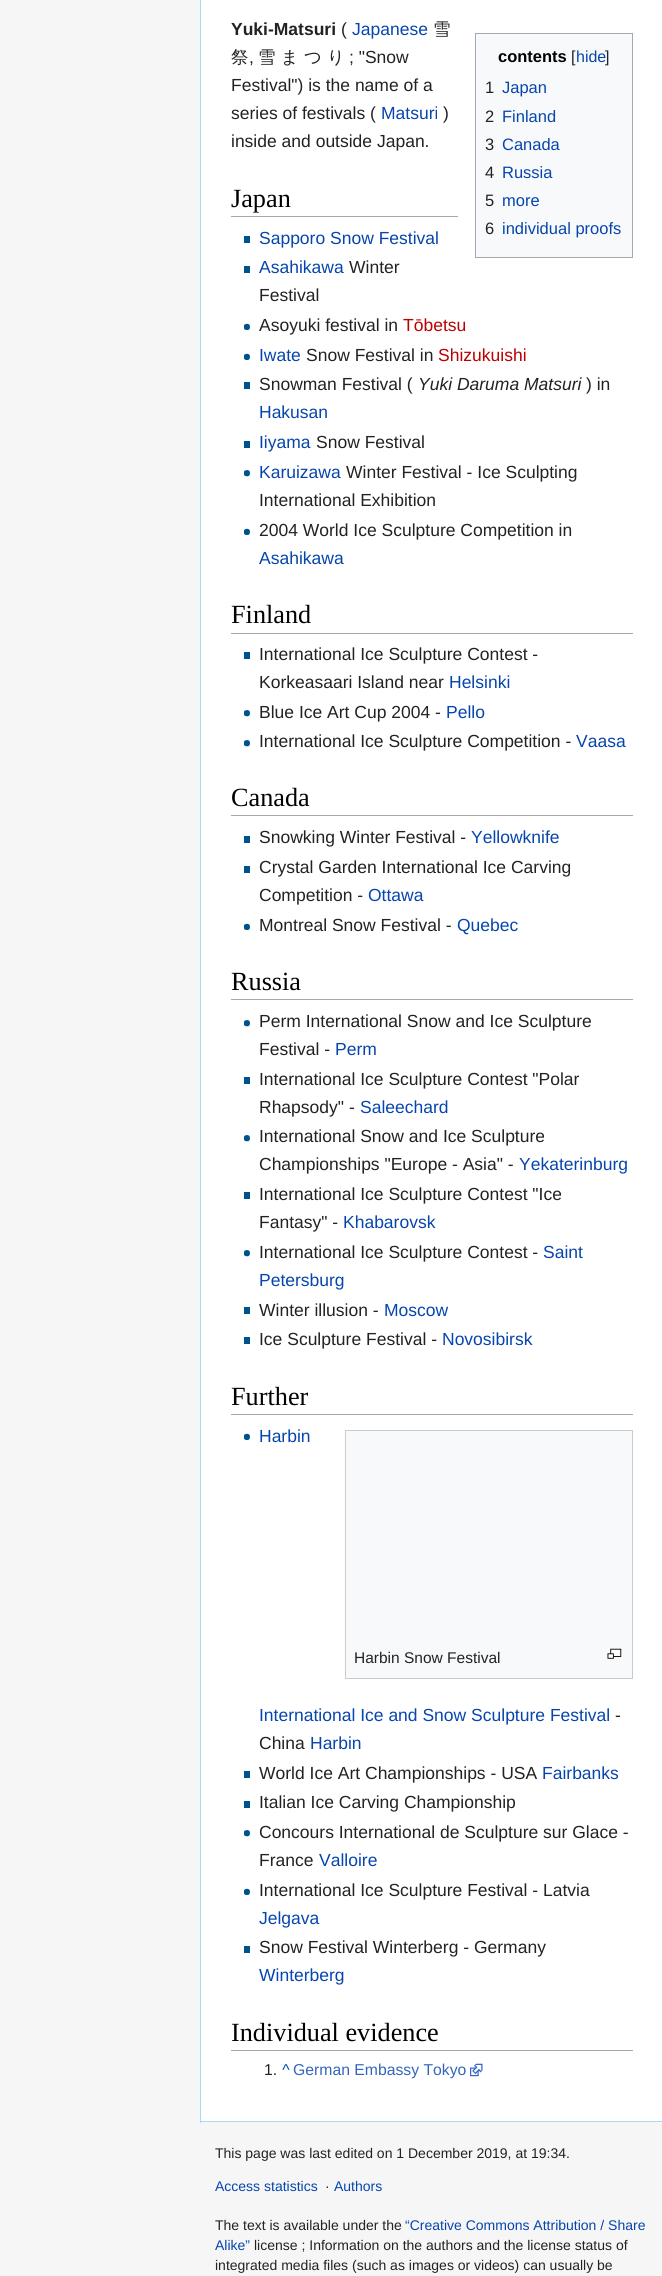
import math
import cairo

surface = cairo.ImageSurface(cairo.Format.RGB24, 662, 2276)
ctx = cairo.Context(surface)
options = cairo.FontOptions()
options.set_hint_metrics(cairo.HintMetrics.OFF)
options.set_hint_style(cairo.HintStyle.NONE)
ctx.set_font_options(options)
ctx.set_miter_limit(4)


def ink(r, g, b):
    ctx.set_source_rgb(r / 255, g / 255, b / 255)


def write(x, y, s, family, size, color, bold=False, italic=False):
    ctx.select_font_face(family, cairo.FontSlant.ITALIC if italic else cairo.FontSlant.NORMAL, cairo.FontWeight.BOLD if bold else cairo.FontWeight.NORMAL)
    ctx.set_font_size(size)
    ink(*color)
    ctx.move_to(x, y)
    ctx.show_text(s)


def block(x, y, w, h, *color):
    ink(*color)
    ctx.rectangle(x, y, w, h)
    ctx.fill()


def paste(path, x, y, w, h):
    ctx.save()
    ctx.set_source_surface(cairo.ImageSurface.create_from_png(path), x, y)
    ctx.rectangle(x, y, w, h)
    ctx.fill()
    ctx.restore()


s1 = dict(family="Liberation Sans", size=17.5, color=(34, 34, 34), bold=True)
s2 = dict(family="Liberation Sans", size=17.5, color=(34, 34, 34))
s3 = dict(family="Liberation Sans", size=17.5, color=(6, 69, 173))
s4 = dict(family="WenQuanYi Zen Hei Medium", size=17.5, color=(34, 34, 34))
s5 = dict(family="Liberation Sans", size=16.5, color=(0, 0, 0), bold=True)
s6 = dict(family="Liberation Sans", size=16, color=(34, 34, 34))
s7 = dict(family="Liberation Sans", size=16, color=(6, 69, 173))
s8 = dict(family="Liberation Sans", size=16.5, color=(34, 34, 34))
s9 = dict(family="Liberation Sans", size=16.5, color=(6, 69, 173))
s10 = dict(family="Liberation Serif", size=26.25, color=(0, 0, 0))
s11 = dict(family="Liberation Sans", size=17.5, color=(186, 0, 0))
s12 = dict(family="Liberation Sans", size=17.5, color=(34, 34, 34), italic=True)
s13 = dict(family="Liberation Sans", size=15.5, color=(34, 34, 34))
s14 = dict(family="Liberation Sans", size=15.75, color=(34, 34, 34))
s15 = dict(family="Liberation Sans", size=15.75, color=(6, 69, 173), italic=True)
s16 = dict(family="Liberation Sans", size=15.75, color=(51, 102, 187))
s17 = dict(family="Liberation Sans", size=14, color=(34, 34, 34))
s18 = dict(family="Liberation Sans", size=14, color=(6, 69, 173))

ink(246, 246, 246)
ctx.paint()
block(201, 0, 461, 2121, 255, 255, 255)
block(200, 2121, 462, 1, 167, 215, 249)
block(200, 0, 1, 2123, 167, 215, 249)
write(231, 35, "Yuki-Matsuri", **s1)
write(341, 35, "(", **s2)
write(352, 35, "Japanese", **s3)
write(433, 35, "雪", **s4)
write(231, 63, "祭", **s4)
write(249, 63, ",", **s2)
write(258, 63, "雪 ま つ り", **s4)
write(349, 63, "; \"Snow", **s2)
write(231, 91, "Festival\") is the name of a", **s2)
write(231, 119, "series of festivals (", **s2)
write(381, 119, "Matsuri", **s3)
write(443, 119, ")", **s2)
write(231, 147, "inside and outside Japan.", **s2)
ink(248, 249, 250)
ctx.rectangle(475.5, 33.5, 157, 224)
ctx.fill_preserve()
ink(162, 169, 177)
ctx.set_line_width(1)
ctx.stroke()
write(498, 62, "contents", **s5)
write(571, 62, "[", **s6)
write(576, 62, "hide", **s7)
write(605, 62, "]", **s6)
write(485, 93, "1", **s8)
write(502, 93, "Japan", **s9)
write(485, 122, "2", **s8)
write(502, 122, "Finland", **s9)
write(485, 150, "3", **s8)
write(502, 150, "Canada", **s9)
write(485, 178, "4", **s8)
write(502, 178, "Russia", **s9)
write(485, 206, "5", **s8)
write(502, 206, "more", **s9)
write(485, 234, "6", **s8)
write(502, 234, "individual proofs", **s9)
block(231, 216, 227, 1, 162, 169, 177)
write(231, 207, "Japan", **s10)
block(244, 236, 6, 7, 0, 82, 140)
write(259, 244, "Sapporo Snow Festival", **s3)
block(244, 266, 6, 7, 0, 82, 140)
write(259, 273, "Asahikawa", **s3)
write(349, 273, "Winter", **s2)
write(259, 301, "Festival", **s2)
paste("pic1.png", 244, 323, 6, 7)
write(259, 331, "Asoyuki festival in", **s2)
write(403, 331, "Tōbetsu", **s11)
paste("pic1.png", 244, 353, 6, 7)
write(259, 361, "Iwate", **s3)
write(306, 361, "Snow Festival in", **s2)
write(438, 361, "Shizukuishi", **s11)
block(244, 382, 6, 7, 0, 82, 140)
write(259, 390, "Snowman Festival (", **s2)
write(418, 390, "Yuki Daruma Matsuri", **s12)
write(586, 390, ") in", **s2)
write(259, 418, "Hakusan", **s3)
block(244, 441, 6, 7, 0, 82, 140)
write(259, 448, "Iiyama", **s3)
write(316, 448, "Snow Festival", **s2)
paste("pic2.png", 244, 470, 6, 7)
write(259, 478, "Karuizawa", **s3)
write(346, 478, "Winter Festival - Ice Sculpting", **s2)
write(259, 506, "International Exhibition", **s2)
paste("pic1.png", 244, 528, 6, 7)
write(259, 536, "2004 World Ice Sculpture Competition in", **s2)
write(259, 564, "Asahikawa", **s3)
block(231, 633, 402, 1, 162, 169, 177)
write(231, 623, "Finland", **s10)
block(244, 652, 6, 7, 0, 82, 140)
write(259, 660, "International Ice Sculpture Contest -", **s2)
write(259, 688, "Korkeasaari Island near", **s2)
write(449, 688, "Helsinki", **s3)
paste("pic2.png", 244, 710, 6, 7)
write(259, 718, "Blue Ice Art Cup 2004 -", **s2)
write(446, 718, "Pello", **s3)
paste("pic2.png", 244, 740, 6, 7)
write(259, 747, "International Ice Sculpture Competition -", **s2)
write(576, 747, "Vaasa", **s3)
block(231, 815, 402, 1, 162, 169, 177)
write(231, 806, "Canada", **s10)
block(244, 836, 6, 7, 0, 82, 140)
write(259, 843, "Snowking Winter Festival -", **s2)
write(471, 843, "Yellowknife", **s3)
block(244, 866, 6, 7, 0, 82, 140)
write(259, 873, "Crystal Garden International Ice Carving", **s2)
write(259, 901, "Competition -", **s2)
write(368, 901, "Ottawa", **s3)
paste("pic1.png", 244, 923, 6, 7)
write(259, 931, "Montreal Snow Festival -", **s2)
write(457, 931, "Quebec", **s3)
block(231, 999, 402, 1, 162, 169, 177)
write(231, 990, "Russia", **s10)
paste("pic2.png", 244, 1020, 6, 7)
write(259, 1027, "Perm International Snow and Ice Sculpture", **s2)
write(259, 1055, "Festival -", **s2)
write(335, 1055, "Perm", **s3)
block(244, 1077, 6, 7, 0, 82, 140)
write(259, 1085, "International Ice Sculpture Contest \"Polar", **s2)
write(259, 1113, "Rhapsody\" -", **s2)
write(360, 1113, "Saleechard", **s3)
paste("pic2.png", 244, 1135, 6, 7)
write(259, 1142, "International Snow and Ice Sculpture", **s2)
write(259, 1170, "Championships \"Europe - Asia\" -", **s2)
write(519, 1170, "Yekaterinburg", **s3)
block(244, 1192, 6, 7, 0, 82, 140)
write(259, 1200, "International Ice Sculpture Contest \"Ice", **s2)
write(259, 1228, "Fantasy\" -", **s2)
write(343, 1228, "Khabarovsk", **s3)
paste("pic2.png", 244, 1250, 6, 7)
write(259, 1258, "International Ice Sculpture Contest -", **s2)
write(543, 1258, "Saint", **s3)
write(259, 1286, "Petersburg", **s3)
block(244, 1307, 6, 7, 0, 82, 140)
write(259, 1316, "Winter illusion -", **s2)
write(384, 1316, "Moscow", **s3)
block(244, 1337, 6, 7, 0, 82, 140)
write(259, 1345, "Ice Sculpture Festival -", **s2)
write(442, 1345, "Novosibirsk", **s3)
block(231, 1414, 402, 1, 162, 169, 177)
write(231, 1405, "Further", **s10)
paste("pic1.png", 244, 1433, 6, 7)
write(259, 1442, "Harbin", **s3)
write(259, 1721, "International Ice and Snow Sculpture Festival", **s3)
write(615, 1721, "-", **s2)
write(259, 1749, "China", **s2)
write(310, 1749, "Harbin", **s3)
block(244, 1771, 6, 7, 0, 82, 140)
write(259, 1779, "World Ice Art Championships - USA", **s2)
write(542, 1779, "Fairbanks", **s3)
block(244, 1801, 6, 7, 0, 82, 140)
write(259, 1808, "Italian Ice Carving Championship", **s2)
paste("pic2.png", 244, 1830, 6, 7)
write(259, 1838, "Concours International de Sculpture sur Glace -", **s2)
write(259, 1866, "France", **s2)
write(319, 1866, "Valloire", **s3)
paste("pic1.png", 244, 1888, 6, 7)
write(259, 1896, "International Ice Sculpture Festival - Latvia", **s2)
write(259, 1924, "Jelgava", **s3)
block(244, 1946, 6, 7, 0, 82, 140)
write(259, 1953, "Snow Festival Winterberg - Germany", **s2)
write(259, 1981, "Winterberg", **s3)
ink(248, 249, 250)
ctx.rectangle(345.5, 1430.5, 287, 248)
ctx.fill_preserve()
ink(200, 204, 209)
ctx.stroke()
write(354, 1663, "Harbin Snow Festival", **s13)
paste("pic3.png", 607, 1648, 15, 11)
block(231, 2050, 402, 1, 162, 169, 177)
write(231, 2041, "Individual evidence", **s10)
write(264, 2075, "1.", **s14)
write(282, 2075, "^", **s15)
write(293, 2075, "German Embassy Tokyo", **s16)
paste("pic4.png", 470, 2063, 13, 14)
write(215, 2158, "This page was last edited on 1 December 2019, at 19:34.", **s17)
write(215, 2191, "Access statistics", **s18)
write(325, 2191, "·", **s17)
write(334, 2191, "Authors", **s18)
write(215, 2230, "The text is available under the", **s17)
write(405, 2230, "“Creative Commons Attribution / Share", **s18)
write(215, 2250, "Alike”", **s18)
write(254, 2250, "license ; Information on the authors and the license status of", **s17)
write(215, 2270, "integrated media files (such as images or videos) can usually be", **s17)
surface.write_to_png("screenshot.png")
